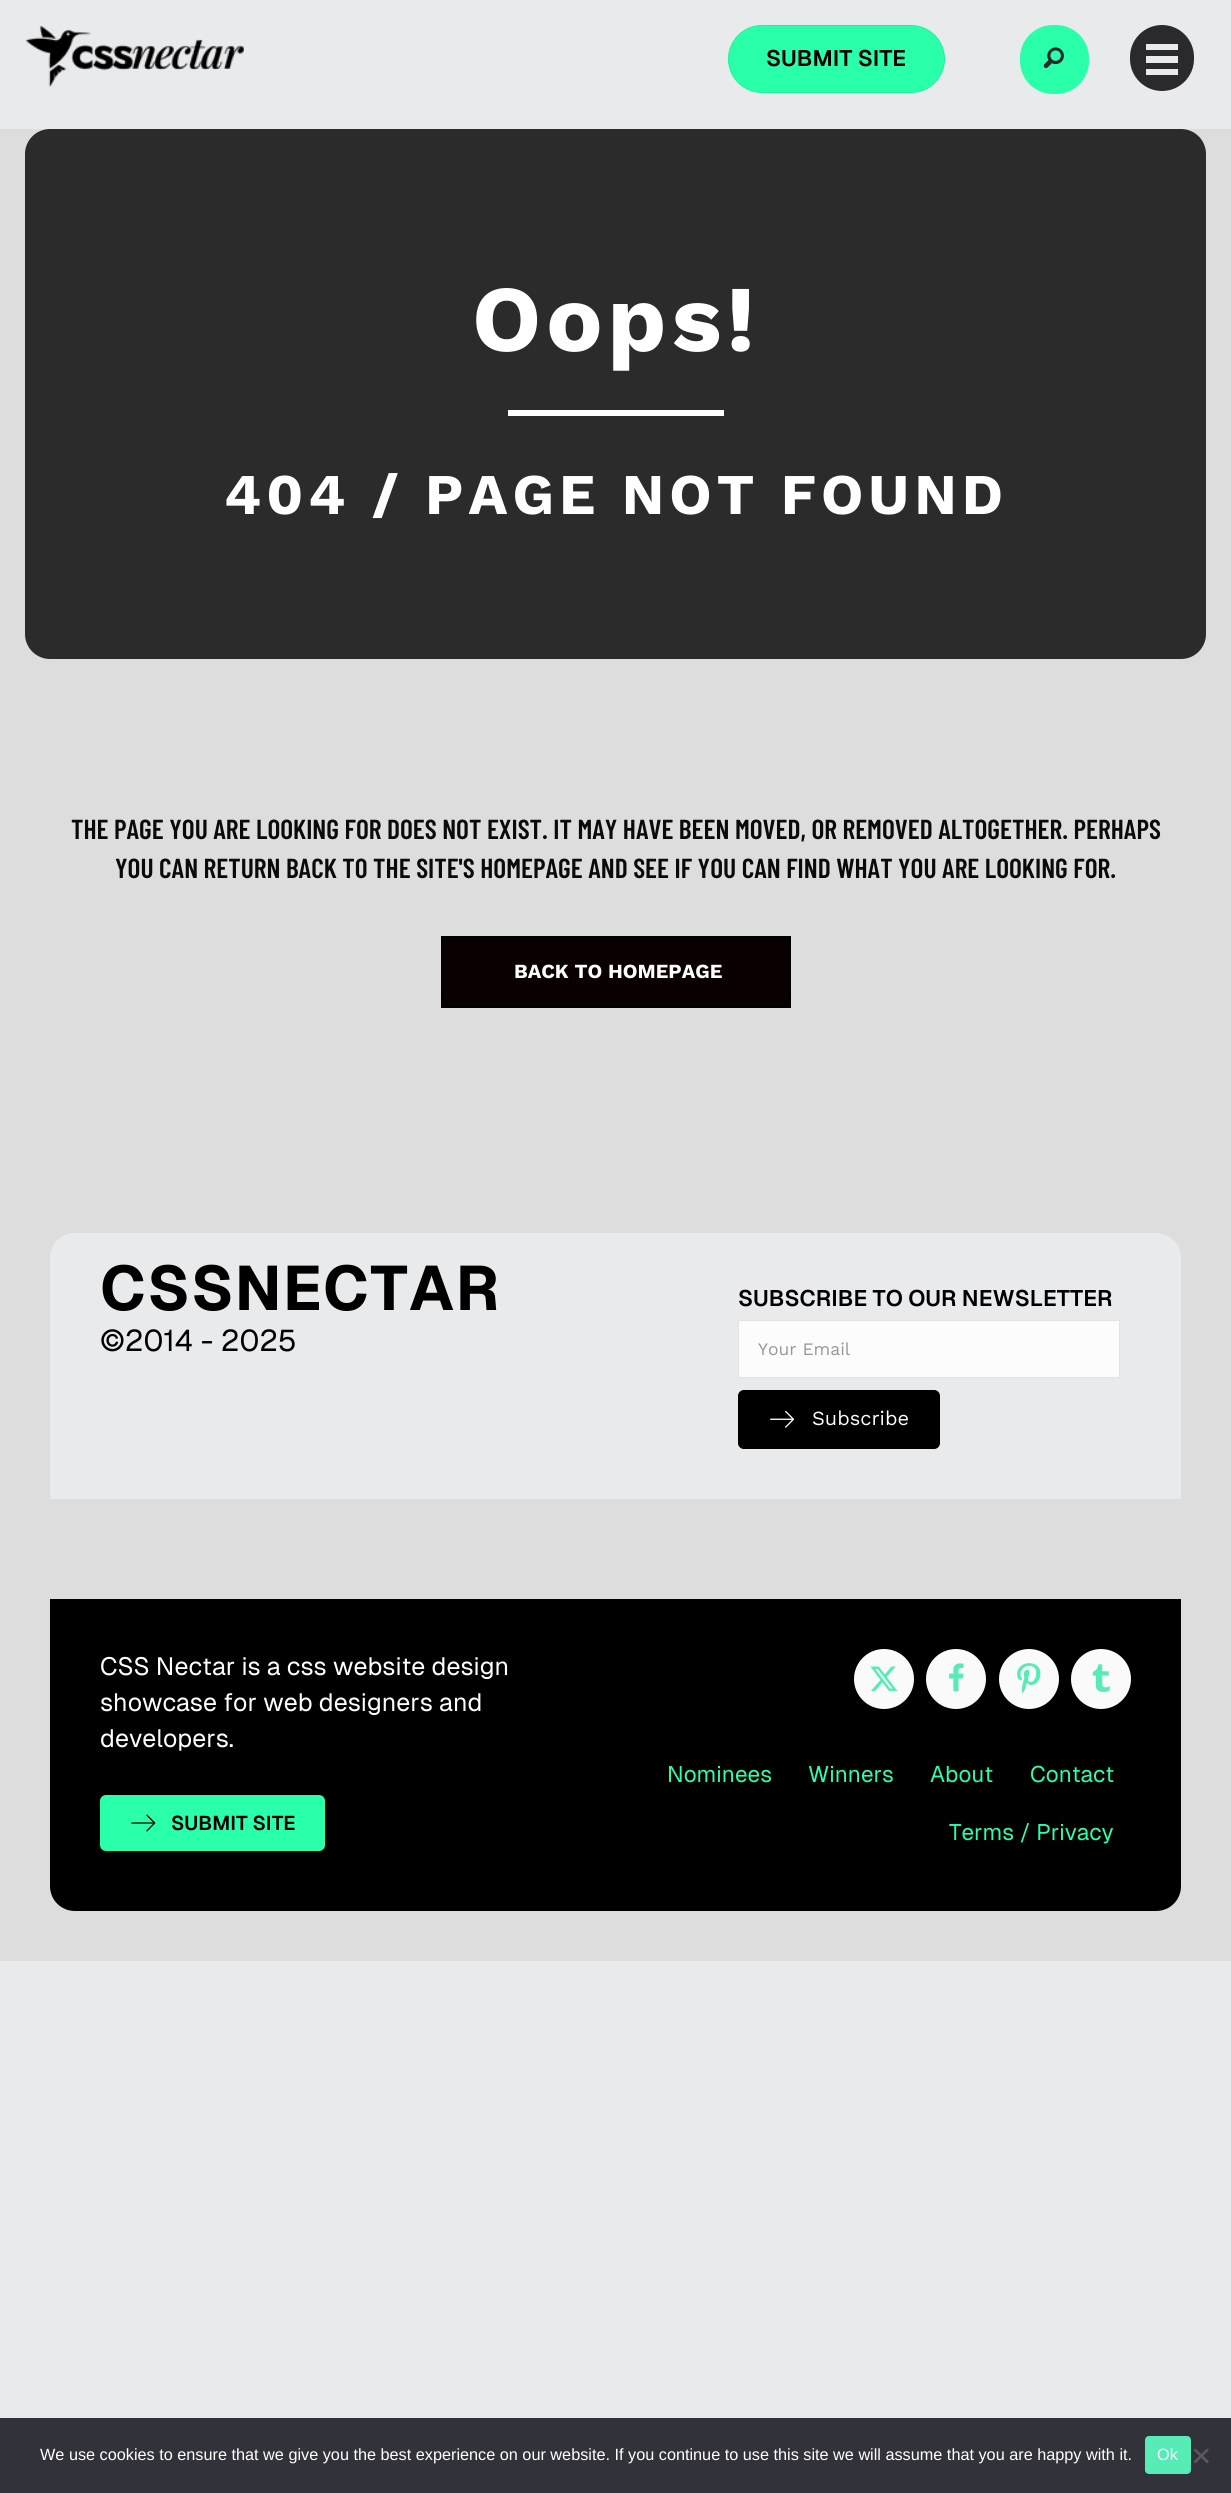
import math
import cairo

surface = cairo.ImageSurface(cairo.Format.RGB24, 1231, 2493)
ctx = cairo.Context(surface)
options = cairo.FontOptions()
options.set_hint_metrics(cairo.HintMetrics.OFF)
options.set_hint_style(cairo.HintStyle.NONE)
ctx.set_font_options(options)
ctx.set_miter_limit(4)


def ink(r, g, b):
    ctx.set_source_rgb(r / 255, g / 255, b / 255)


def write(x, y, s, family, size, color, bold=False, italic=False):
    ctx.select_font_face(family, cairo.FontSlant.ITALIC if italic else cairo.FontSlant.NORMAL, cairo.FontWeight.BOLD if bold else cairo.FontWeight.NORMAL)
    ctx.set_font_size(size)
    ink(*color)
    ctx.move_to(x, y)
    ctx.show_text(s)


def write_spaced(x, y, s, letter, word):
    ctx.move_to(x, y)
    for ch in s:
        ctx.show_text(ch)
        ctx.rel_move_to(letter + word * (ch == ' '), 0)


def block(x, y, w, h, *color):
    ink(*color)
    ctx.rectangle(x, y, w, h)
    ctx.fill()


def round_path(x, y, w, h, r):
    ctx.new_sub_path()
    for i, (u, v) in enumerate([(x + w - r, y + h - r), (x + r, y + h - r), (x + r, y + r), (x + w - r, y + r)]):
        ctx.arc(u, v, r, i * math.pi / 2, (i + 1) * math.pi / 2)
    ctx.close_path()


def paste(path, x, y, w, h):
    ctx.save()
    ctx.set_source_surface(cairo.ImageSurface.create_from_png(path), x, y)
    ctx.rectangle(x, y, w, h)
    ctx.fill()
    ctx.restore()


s1 = dict(family="Geist SemiBold", size=22.5, color=(0, 0, 0))
s2 = dict(family="Barlow Condensed SemiBold", size=27.5, color=(10, 10, 10))
s3 = dict(family="Work Sans", size=20, color=(255, 255, 255), bold=True)
s4 = dict(family="Geist", size=30, color=(0, 0, 0))
s5 = dict(family="Work Sans", size=17.5, color=(151, 151, 151))
s6 = dict(family="Work Sans", size=20, color=(255, 255, 255))
s7 = dict(family="Geist", size=25, color=(255, 255, 255))
s8 = dict(family="Geist SemiBold", size=20, color=(0, 0, 0))
s9 = dict(family="Geist", size=22.5, color=(42, 255, 170))
s10 = dict(family="Liberation Sans", size=16.25, color=(255, 255, 255))

ink(232, 234, 236)
ctx.paint()
paste("pic1.png", 25, 25, 219, 62)
ink(42, 255, 170)
round_path(728.5, 25.5, 216, 67, 33.5)
ctx.fill_preserve()
ink(30, 243, 158)
ctx.set_line_width(1)
ctx.stroke()
write(766, 66, "SUBMIT SITE", **s1)
ink(42, 255, 170)
round_path(1020, 25, 69, 69, 33)
ctx.fill()
paste("pic2.png", 1043, 47, 21, 21)
ink(42, 42, 45)
round_path(1130, 25, 64, 66, 32)
ctx.fill()
block(1146, 44, 32, 6, 232, 234, 236)
block(1146, 56, 32, 7, 232, 234, 236)
block(1146, 69, 32, 6, 232, 234, 236)
block(0, 129, 1231, 1832, 221, 221, 221)
ink(43, 43, 43)
round_path(25, 129, 1181, 530, 25)
ctx.fill()
ctx.select_font_face("Work Sans", cairo.FontSlant.NORMAL, cairo.FontWeight.BOLD)
ctx.set_font_size(94)
ink(255, 255, 255)
write_spaced(472, 351, "Oops!", 5, 0)
block(508, 410, 216, 6, 255, 255, 255)
ctx.set_font_size(57.5)
write_spaced(224, 514, "404 / PAGE NOT FOUND", 5, 0)
write(71, 839, "THE PAGE YOU ARE LOOKING FOR DOES NOT EXIST. IT MAY HAVE BEEN MOVED, OR REMOVED ALTOGETHER. PERHAPS", **s2)
write(115, 878, "YOU CAN RETURN BACK TO THE SITE'S HOMEPAGE AND SEE IF YOU CAN FIND WHAT YOU ARE LOOKING FOR.", **s2)
ink(10, 0, 0)
ctx.rectangle(442.5, 937.5, 347, 69)
ctx.fill_preserve()
ink(0, 0, 0)
ctx.set_line_width(3)
ctx.stroke()
write(514, 978, "BACK TO HOMEPAGE", **s3)
ink(232, 234, 236)
ctx.new_path()
ctx.move_to(75, 1233)
ctx.line_to(1156, 1233)
ctx.curve_to(1170, 1233, 1181, 1244, 1181, 1258)
ctx.line_to(1181, 1499)
ctx.line_to(50, 1499)
ctx.line_to(50, 1258)
ctx.curve_to(50, 1244, 61, 1233, 75, 1233)
ctx.close_path()
ctx.fill()
ctx.select_font_face("Geist", cairo.FontSlant.NORMAL, cairo.FontWeight.BOLD)
ctx.set_font_size(62.5)
ink(0, 0, 0)
write_spaced(100, 1310, "CSSNECTAR", 1.25, 0)
write(100, 1351, "©2014 - 2025", **s4)
write(738, 1306, "SUBSCRIBE TO OUR NEWSLETTER", **s1)
ink(252, 252, 252)
ctx.rectangle(738.5, 1320.5, 381, 57)
ctx.fill_preserve()
ink(227, 227, 227)
ctx.set_line_width(1)
ctx.stroke()
write(758, 1355, "Your Email", **s5)
ink(0, 0, 0)
round_path(738.5, 1390.5, 201, 58, 5.5)
ctx.fill_preserve()
ctx.stroke()
paste("pic3.png", 770, 1410, 24, 18)
write(812, 1425, "Subscribe", **s6)
ink(0, 0, 0)
ctx.new_path()
ctx.move_to(50, 1599)
ctx.line_to(1181, 1599)
ctx.line_to(1181, 1886)
ctx.curve_to(1181, 1900, 1170, 1911, 1156, 1911)
ctx.line_to(75, 1911)
ctx.curve_to(61, 1911, 50, 1900, 50, 1886)
ctx.close_path()
ctx.fill()
write(100, 1675, "CSS Nectar is a css website design", **s7)
write(100, 1711, "showcase for web designers and", **s7)
write(100, 1747, "developers.", **s7)
ink(42, 255, 170)
round_path(100, 1795, 225, 56, 6)
ctx.fill()
paste("pic4.png", 131, 1814, 25, 18)
write(171, 1830, "SUBMIT SITE", **s8)
ink(250, 250, 250)
ctx.new_path()
ctx.arc(884, 1679, 30, 0, 2 * math.pi)
ctx.fill()
paste("pic5.png", 870, 1666, 28, 25)
ctx.arc(956, 1679, 30, 0, 2 * math.pi)
ctx.fill()
paste("pic6.png", 949, 1663, 15, 29)
ctx.arc(1029, 1679, 30, 0, 2 * math.pi)
ctx.fill()
paste("pic7.png", 1017, 1663, 24, 30)
ctx.arc(1101, 1679, 30, 0, 2 * math.pi)
ctx.fill()
paste("pic8.png", 1092, 1664, 18, 28)
write(667, 1782, "Nominees", **s9)
write(808, 1782, "Winners", **s9)
write(930, 1782, "About", **s9)
write(1030, 1782, "Contact", **s9)
write(949, 1840, "Terms / Privacy", **s9)
block(0, 2418, 1231, 75, 50, 50, 58)
write(40, 2460, "We use cookies to ensure that we give you the best experience on our website. If you continue to use this site we will assume that you are happy with it.", **s10)
ink(87, 235, 182)
round_path(1145, 2436, 46, 38, 4)
ctx.fill()
write(1157, 2460, "Ok", **s10)
ink(89, 89, 93)
ctx.new_path()
ctx.move_to(1207, 2448.5)
ctx.line_to(1209, 2450)
ctx.line_to(1195.5, 2463.5)
ctx.line_to(1193.5, 2461.5)
ctx.close_path()
ctx.fill()
ctx.new_path()
ctx.move_to(1193.5, 2450)
ctx.line_to(1195.5, 2448.5)
ctx.line_to(1209, 2461.5)
ctx.line_to(1207, 2463.5)
ctx.close_path()
ctx.fill()
surface.write_to_png("screenshot.png")
